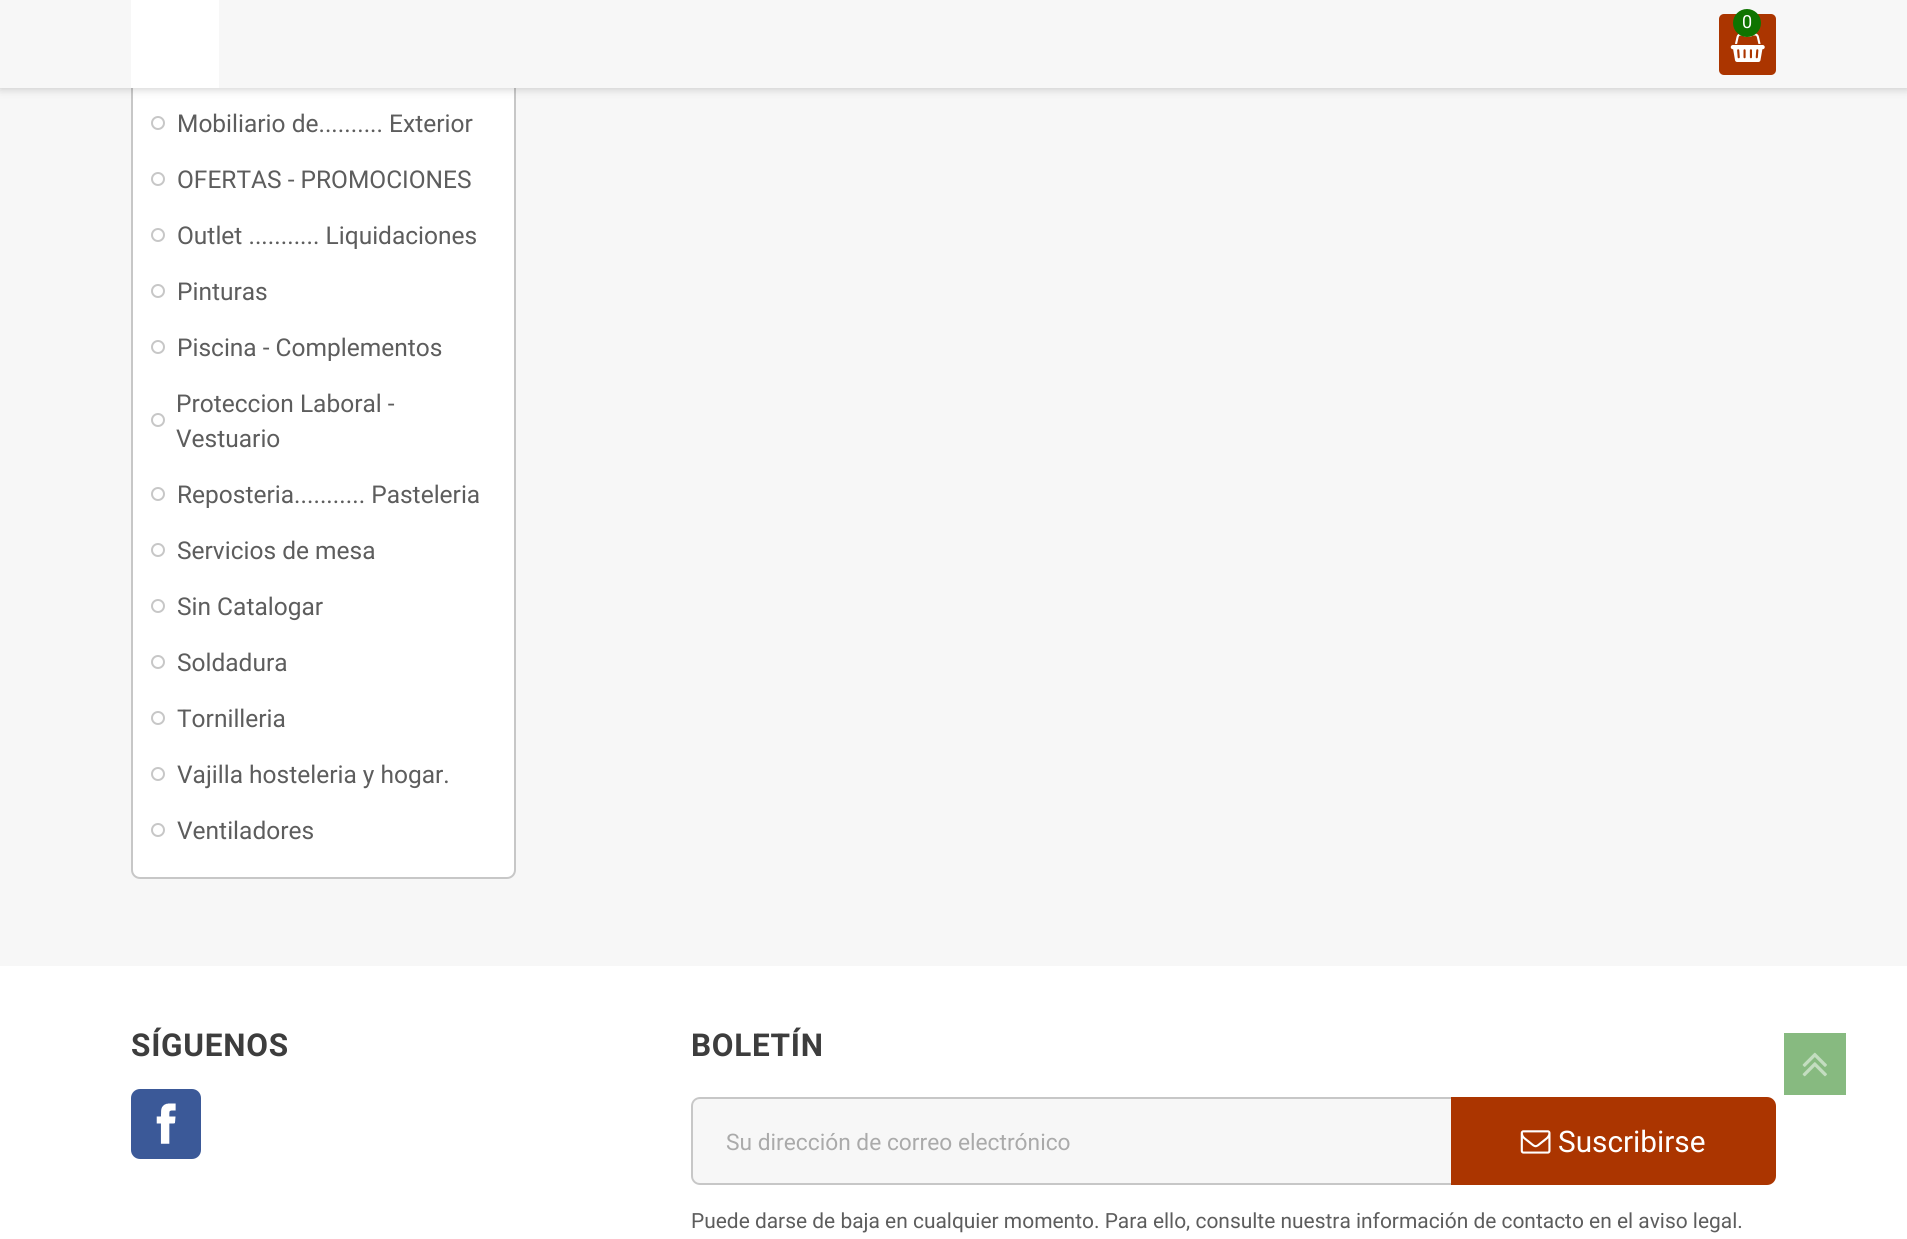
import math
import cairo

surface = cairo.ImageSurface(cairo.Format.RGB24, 1907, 1239)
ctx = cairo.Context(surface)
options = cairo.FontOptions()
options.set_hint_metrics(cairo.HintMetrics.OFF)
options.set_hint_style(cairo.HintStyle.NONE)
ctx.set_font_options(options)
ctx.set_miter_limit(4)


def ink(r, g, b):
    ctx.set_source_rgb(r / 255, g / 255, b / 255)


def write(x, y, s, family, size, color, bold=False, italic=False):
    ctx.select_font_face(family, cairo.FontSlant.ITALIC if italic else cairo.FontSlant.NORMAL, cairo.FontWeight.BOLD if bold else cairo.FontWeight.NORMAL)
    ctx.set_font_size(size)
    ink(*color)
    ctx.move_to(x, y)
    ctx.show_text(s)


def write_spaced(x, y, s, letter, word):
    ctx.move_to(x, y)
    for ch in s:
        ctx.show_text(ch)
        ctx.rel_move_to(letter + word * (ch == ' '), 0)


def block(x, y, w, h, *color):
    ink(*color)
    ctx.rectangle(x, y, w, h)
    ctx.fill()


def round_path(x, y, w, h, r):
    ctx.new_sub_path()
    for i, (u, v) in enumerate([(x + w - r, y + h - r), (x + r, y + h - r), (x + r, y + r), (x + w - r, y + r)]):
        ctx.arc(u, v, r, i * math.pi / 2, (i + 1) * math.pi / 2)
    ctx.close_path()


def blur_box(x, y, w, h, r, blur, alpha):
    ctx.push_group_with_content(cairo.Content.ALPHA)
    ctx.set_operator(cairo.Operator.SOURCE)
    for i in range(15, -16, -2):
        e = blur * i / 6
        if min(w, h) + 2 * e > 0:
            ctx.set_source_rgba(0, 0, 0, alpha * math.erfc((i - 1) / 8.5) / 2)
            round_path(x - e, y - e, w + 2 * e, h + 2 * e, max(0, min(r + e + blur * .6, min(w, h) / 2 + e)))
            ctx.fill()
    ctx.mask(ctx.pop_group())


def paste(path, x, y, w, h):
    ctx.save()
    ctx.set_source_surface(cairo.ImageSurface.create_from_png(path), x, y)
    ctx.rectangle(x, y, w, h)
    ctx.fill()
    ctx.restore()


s1 = dict(family="Roboto", size=18, color=(255, 255, 255))
s2 = dict(family="Roboto", size=24.5, color=(93, 93, 93))
s3 = dict(family="Roboto", size=22.75, color=(170, 170, 170))
s4 = dict(family="Roboto", size=29.75, color=(255, 255, 255))
s5 = dict(family="Roboto", size=20.93, color=(93, 93, 93))

ink(255, 255, 255)
ctx.paint()
block(0, 88, 1907, 878, 247, 247, 247)
ink(255, 255, 255)
round_path(132, -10, 383, 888, 8)
ctx.fill_preserve()
ink(199, 199, 199)
ctx.stroke()
ink(0, 0, 0)
blur_box(0, 2, 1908, 87, 0, 4.5, 0.2)
block(0, 0, 1907, 88, 247, 247, 247)
block(131, 0, 88, 88, 255, 255, 255)
ink(171, 53, 0)
round_path(1719, 14, 57, 61, 5)
ctx.fill()
paste("pic1.png", 1730, 33, 35, 29)
ink(15, 116, 0)
ctx.arc(1747, 23, 14, 0, 2 * math.pi)
ctx.fill()
write(1742, 28, "0", **s1)
ctx.new_path()
ctx.arc(158, 123, 6, 0, 2 * math.pi)
ink(199, 199, 199)
ctx.stroke()
write(177, 132, "Mobiliario de.......... Exterior", **s2)
ctx.new_path()
ctx.arc(158, 179, 6, 0, 2 * math.pi)
ink(199, 199, 199)
ctx.stroke()
write(177, 188, "OFERTAS - PROMOCIONES", **s2)
ctx.new_path()
ctx.arc(158, 235, 6, 0, 2 * math.pi)
ink(199, 199, 199)
ctx.stroke()
write(177, 244, "Outlet ........... Liquidaciones", **s2)
ctx.new_path()
ctx.arc(158, 291, 6, 0, 2 * math.pi)
ink(199, 199, 199)
ctx.stroke()
write(177, 300, "Pinturas", **s2)
ctx.new_path()
ctx.arc(158, 347, 6, 0, 2 * math.pi)
ink(199, 199, 199)
ctx.stroke()
write(177, 356, "Piscina - Complementos", **s2)
ctx.new_path()
ctx.arc(158, 420, 6, 0, 2 * math.pi)
ink(199, 199, 199)
ctx.stroke()
write(176, 412, "Proteccion Laboral -", **s2)
write(176, 447, "Vestuario", **s2)
ctx.new_path()
ctx.arc(158, 494, 6, 0, 2 * math.pi)
ink(199, 199, 199)
ctx.stroke()
write(177, 503, "Reposteria........... Pasteleria", **s2)
ctx.new_path()
ctx.arc(158, 550, 6, 0, 2 * math.pi)
ink(199, 199, 199)
ctx.stroke()
write(177, 559, "Servicios de mesa", **s2)
ctx.new_path()
ctx.arc(158, 606, 6, 0, 2 * math.pi)
ink(199, 199, 199)
ctx.stroke()
write(177, 615, "Sin Catalogar", **s2)
ctx.new_path()
ctx.arc(158, 662, 6, 0, 2 * math.pi)
ink(199, 199, 199)
ctx.stroke()
write(177, 671, "Soldadura", **s2)
ctx.new_path()
ctx.arc(158, 718, 6, 0, 2 * math.pi)
ink(199, 199, 199)
ctx.stroke()
write(177, 727, "Tornilleria", **s2)
ctx.new_path()
ctx.arc(158, 774, 6, 0, 2 * math.pi)
ink(199, 199, 199)
ctx.stroke()
write(177, 783, "Vajilla hosteleria y hogar.", **s2)
ctx.new_path()
ctx.arc(158, 830, 6, 0, 2 * math.pi)
ink(199, 199, 199)
ctx.stroke()
write(177, 839, "Ventiladores", **s2)
ctx.select_font_face("Roboto", cairo.FontSlant.NORMAL, cairo.FontWeight.BOLD)
ctx.set_font_size(31.5)
ink(61, 61, 61)
write_spaced(131, 1056, "SÍGUENOS", 0.75, 0)
ink(59, 89, 152)
round_path(131, 1089, 70, 70, 9)
ctx.fill()
paste("pic2.png", 156, 1103, 20, 41)
ink(61, 61, 61)
write_spaced(691, 1056, "BOLETÍN", 0.75, 0)
ink(247, 247, 247)
ctx.new_path()
ctx.move_to(700, 1099)
ctx.line_to(1451, 1099)
ctx.line_to(1451, 1183)
ctx.line_to(700, 1183)
ctx.curve_to(696, 1183, 693, 1180, 693, 1176)
ctx.line_to(693, 1106)
ctx.curve_to(693, 1102, 696, 1099, 700, 1099)
ctx.close_path()
ctx.fill()
ink(199, 199, 199)
ctx.set_fill_rule(cairo.FillRule.EVEN_ODD)
ctx.new_path()
ctx.move_to(700, 1097)
ctx.line_to(1451, 1097)
ctx.line_to(1451, 1185)
ctx.line_to(700, 1185)
ctx.curve_to(695, 1185, 691, 1181, 691, 1176)
ctx.line_to(691, 1106)
ctx.curve_to(691, 1101, 695, 1097, 700, 1097)
ctx.close_path()
ctx.move_to(700, 1099)
ctx.line_to(1451, 1099)
ctx.line_to(1451, 1183)
ctx.line_to(700, 1183)
ctx.curve_to(696, 1183, 693, 1180, 693, 1176)
ctx.line_to(693, 1106)
ctx.curve_to(693, 1102, 696, 1099, 700, 1099)
ctx.close_path()
ctx.fill()
write(726, 1150, "Su dirección de correo electrónico", **s3)
ink(171, 53, 0)
ctx.new_path()
ctx.move_to(1451, 1097)
ctx.line_to(1767, 1097)
ctx.curve_to(1772, 1097, 1776, 1101, 1776, 1106)
ctx.line_to(1776, 1176)
ctx.curve_to(1776, 1181, 1772, 1185, 1767, 1185)
ctx.line_to(1451, 1185)
ctx.close_path()
ctx.fill()
paste("pic3.png", 1520, 1130, 31, 24)
write(1558, 1152, "Suscribirse", **s4)
write(691, 1228, "Puede darse de baja en cualquier momento. Para ello, consulte nuestra información de contacto en el aviso legal.", **s5)
block(1784, 1033, 62, 62, 135, 186, 128)
paste("pic4.png", 1802, 1052, 25, 25)
surface.write_to_png("screenshot.png")
